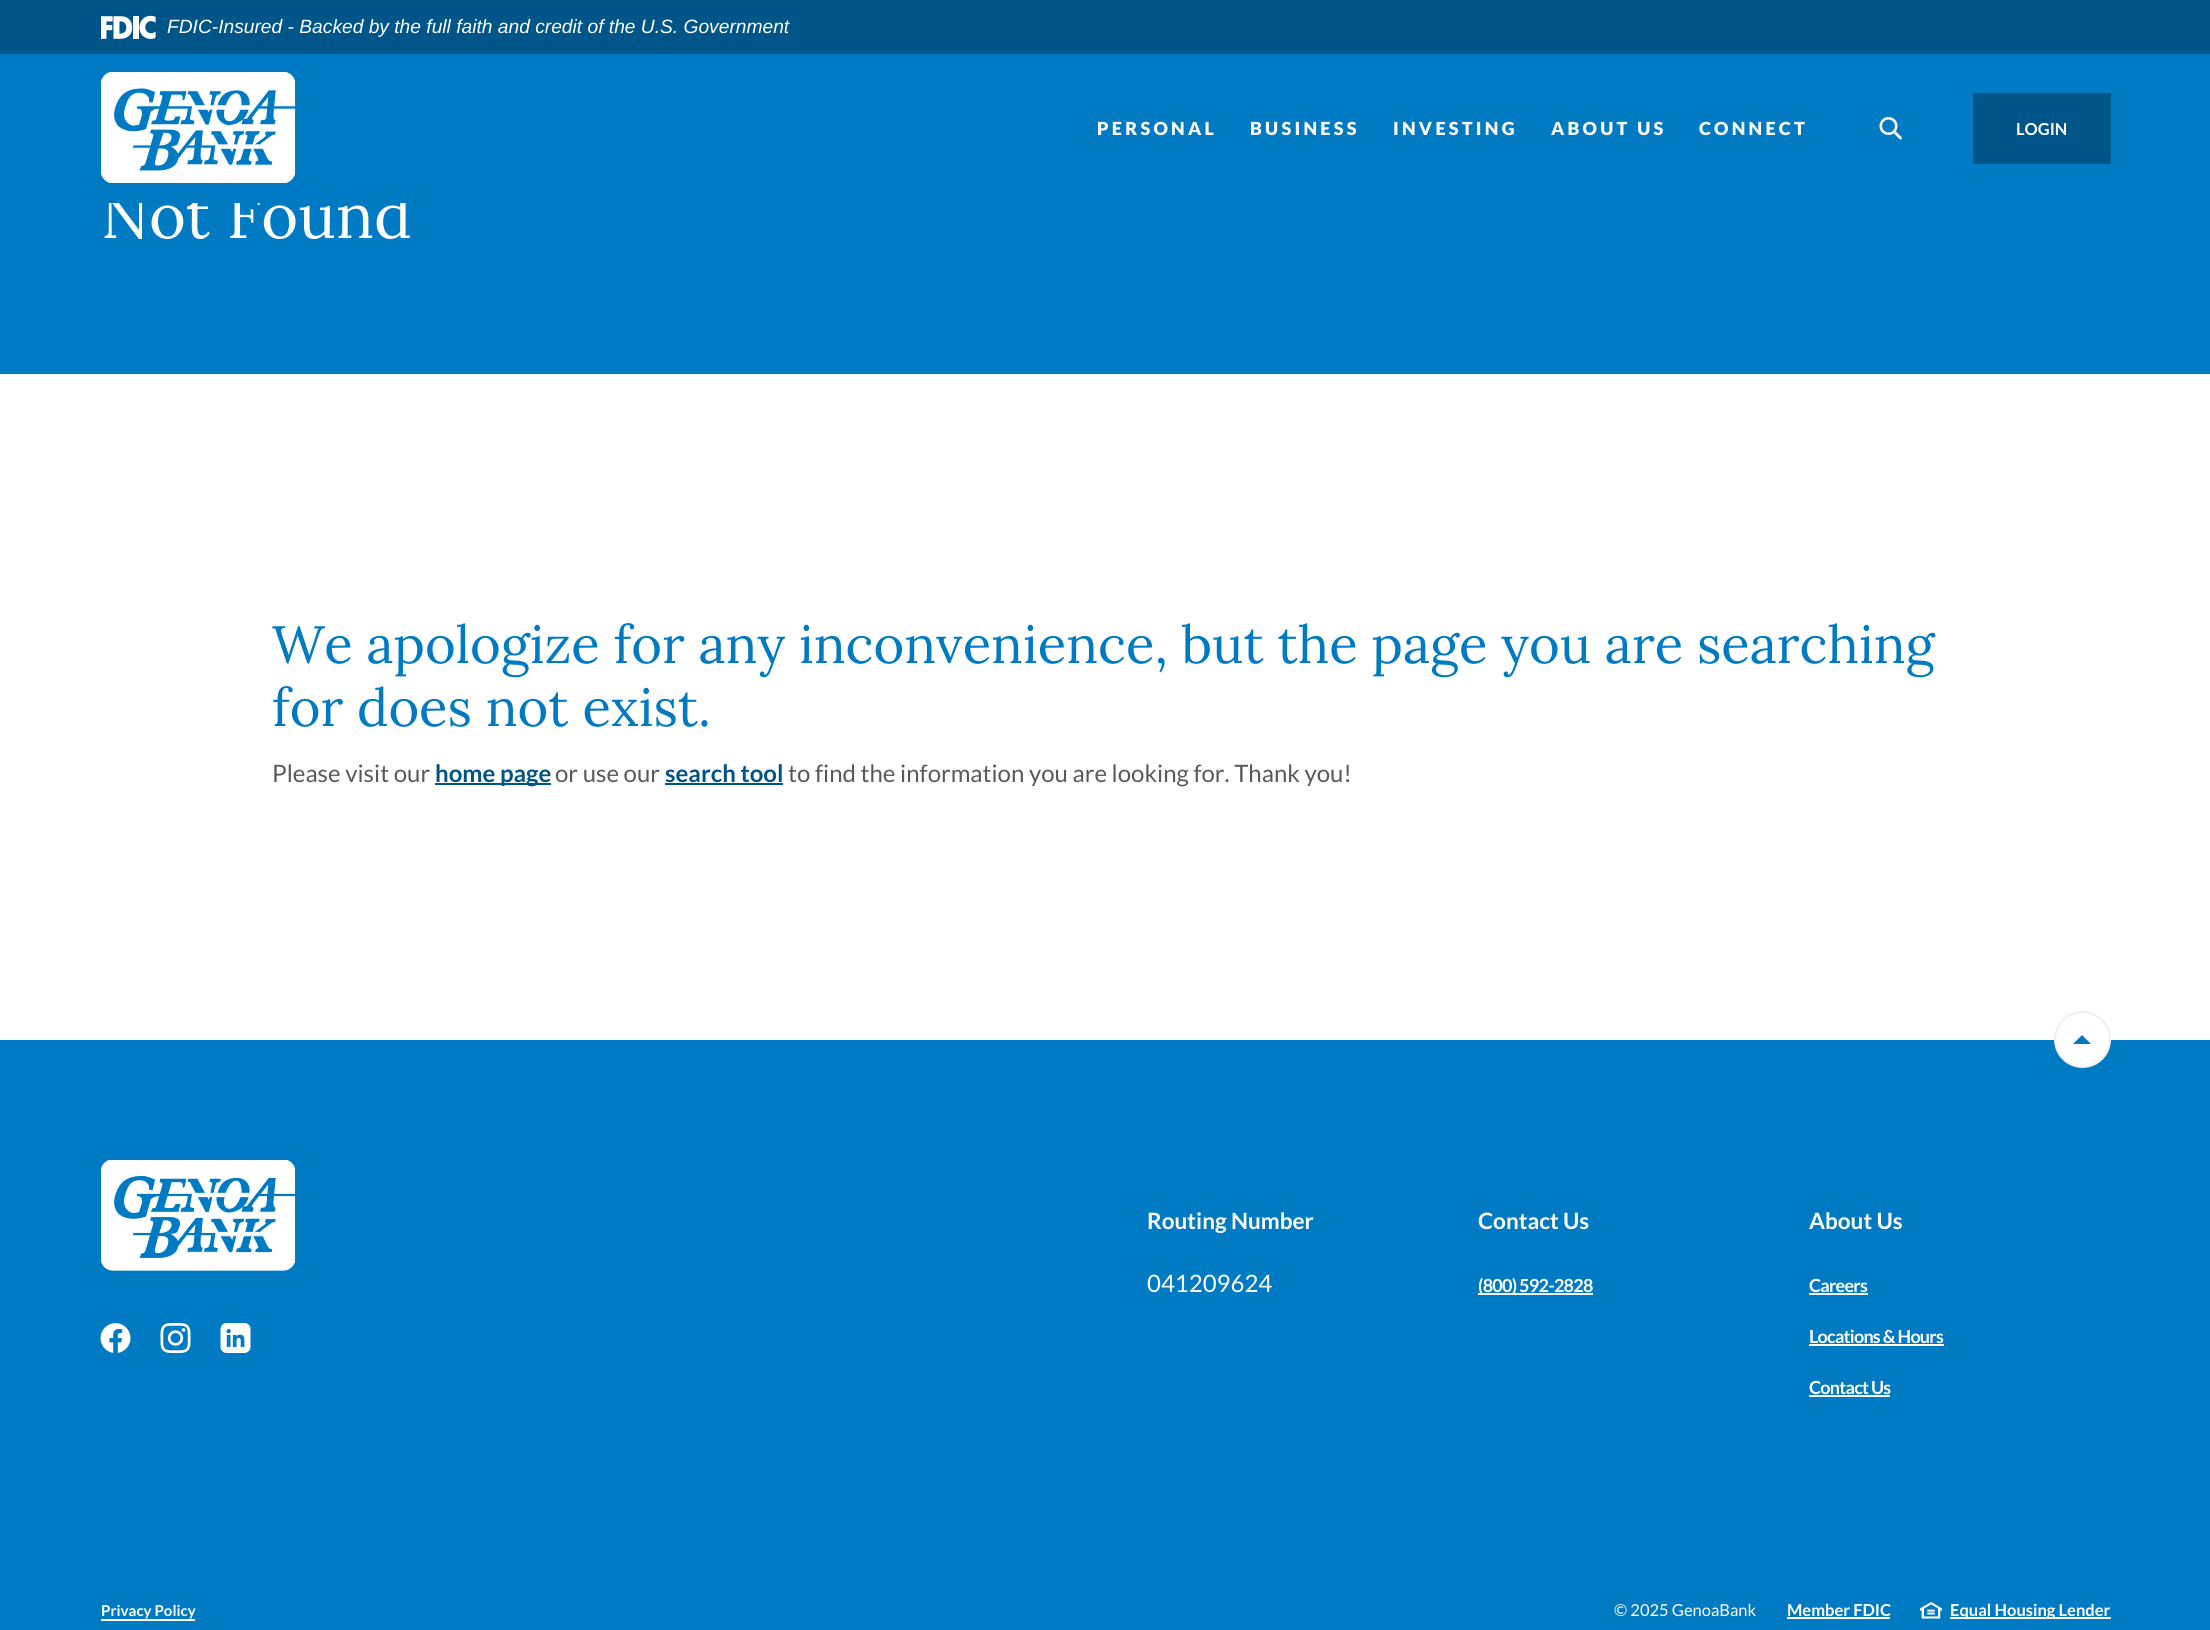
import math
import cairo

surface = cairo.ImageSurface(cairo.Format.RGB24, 2210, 1630)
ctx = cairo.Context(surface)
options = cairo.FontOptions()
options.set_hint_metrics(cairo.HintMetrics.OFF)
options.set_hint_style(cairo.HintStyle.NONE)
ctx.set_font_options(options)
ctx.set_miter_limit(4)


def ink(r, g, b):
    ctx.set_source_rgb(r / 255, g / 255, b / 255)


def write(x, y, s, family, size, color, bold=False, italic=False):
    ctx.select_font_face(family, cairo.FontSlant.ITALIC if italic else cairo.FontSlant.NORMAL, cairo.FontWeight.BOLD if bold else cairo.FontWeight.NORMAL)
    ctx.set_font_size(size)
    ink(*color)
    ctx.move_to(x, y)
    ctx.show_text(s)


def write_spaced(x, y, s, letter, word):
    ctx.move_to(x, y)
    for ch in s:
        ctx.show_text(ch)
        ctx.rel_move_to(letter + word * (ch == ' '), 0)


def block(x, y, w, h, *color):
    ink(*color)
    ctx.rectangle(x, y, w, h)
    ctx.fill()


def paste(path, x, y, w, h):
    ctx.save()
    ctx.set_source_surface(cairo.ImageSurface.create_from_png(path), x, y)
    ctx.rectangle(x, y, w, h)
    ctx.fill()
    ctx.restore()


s1 = dict(family="Lora", size=63, color=(255, 255, 255))
s2 = dict(family="Liberation Sans", size=19.2, color=(255, 255, 255), italic=True)
s3 = dict(family="Lato", size=16.5, color=(255, 255, 255), bold=True)
s4 = dict(family="Lora", size=52.5, color=(0, 122, 194))
s5 = dict(family="Lato", size=24, color=(89, 89, 89))
s6 = dict(family="Lato", size=24, color=(0, 85, 136), bold=True)
s7 = dict(family="Lato", size=22.5, color=(255, 255, 255), bold=True)
s8 = dict(family="Lato", size=24, color=(255, 255, 255))
s9 = dict(family="Lato", size=15, color=(255, 255, 255), bold=True)
s10 = dict(family="Lato", size=16.5, color=(255, 255, 255))

ink(255, 255, 255)
ctx.paint()
block(0, 203, 2210, 171, 0, 122, 194)
write(101, 238, "Not Found", **s1)
block(0, 54, 2210, 149, 0, 122, 194)
block(0, 0, 2210, 54, 0, 85, 136)
paste("pic1.png", 101, 15, 55, 24)
write(167, 33, "FDIC-Insured - Backed by the full faith and credit of the U.S. Government", **s2)
paste("pic2.png", 101, 72, 195, 111)
ctx.select_font_face("Lato Black")
ctx.set_font_size(18)
write_spaced(1097, 135, "PERSONAL", 3.25, 0)
write_spaced(1250, 135, "BUSINESS", 3.25, 0)
write_spaced(1393, 135, "INVESTING", 3.25, 0)
write_spaced(1551, 135, "ABOUT US", 3.25, 0)
write_spaced(1699, 135, "CONNECT", 3.25, 0)
paste("pic3.png", 1879, 117, 23, 23)
block(1973, 93, 138, 71, 0, 85, 136)
write(2016, 135, "LOGIN", **s3)
write(272, 663, "We apologize for any inconvenience, but the page you are searching", **s4)
write(272, 726, "for does not exist.", **s4)
write(272, 782, "Please visit our", **s5)
block(435, 783, 116, 2, 0, 85, 136)
write(435, 782, "home page", **s6)
write(555, 782, "or use our", **s5)
write(665, 782, "search tool", **s6)
block(665, 783, 118, 2, 0, 85, 136)
write(788, 782, "to find the information you are looking for. Thank you!", **s5)
block(0, 1040, 2210, 590, 0, 122, 194)
ink(255, 255, 255)
ctx.new_path()
ctx.arc(2082.5, 1039.5, 27.5, 0, 2 * math.pi)
ctx.fill_preserve()
ink(239, 239, 239)
ctx.stroke()
ink(0, 122, 194)
ctx.new_path()
ctx.move_to(2091, 1044)
ctx.line_to(2073, 1044)
ctx.line_to(2082, 1035)
ctx.close_path()
ctx.fill()
paste("pic4.png", 101, 1160, 195, 111)
paste("pic5.png", 100, 1323, 31, 30)
paste("pic6.png", 160, 1323, 31, 30)
paste("pic7.png", 220, 1323, 31, 30)
write(1147, 1229, "Routing Number", **s7)
write(1147, 1292, "041209624", **s8)
write(1478, 1229, "Contact Us", **s7)
block(1478, 1293, 115, 2, 255, 255, 255)
ctx.set_font_size(18)
write_spaced(1478, 1292, "(800) 592-2828", -0.75, 0)
write(1809, 1229, "About Us", **s7)
ctx.set_font_size(18)
write_spaced(1809, 1292, "Careers", -0.75, 0)
block(1809, 1293, 59, 2, 255, 255, 255)
write_spaced(1809, 1343, "Locations & Hours", -0.75, 0)
block(1809, 1344, 135, 2, 255, 255, 255)
write_spaced(1809, 1394, "Contact Us", -0.75, 0)
block(1809, 1395, 81, 2, 255, 255, 255)
write(101, 1616, "Privacy Policy", **s9)
block(101, 1619, 94, 2, 255, 255, 255)
write(1614, 1616, "© 2025 GenoaBank", **s10)
write(1787, 1616, "Member FDIC", **s3)
block(1787, 1617, 103, 2, 255, 255, 255)
paste("pic8.png", 1920, 1602, 22, 17)
block(1950, 1617, 161, 2, 255, 255, 255)
write(1950, 1616, "Equal Housing Lender", **s3)
surface.write_to_png("screenshot.png")
